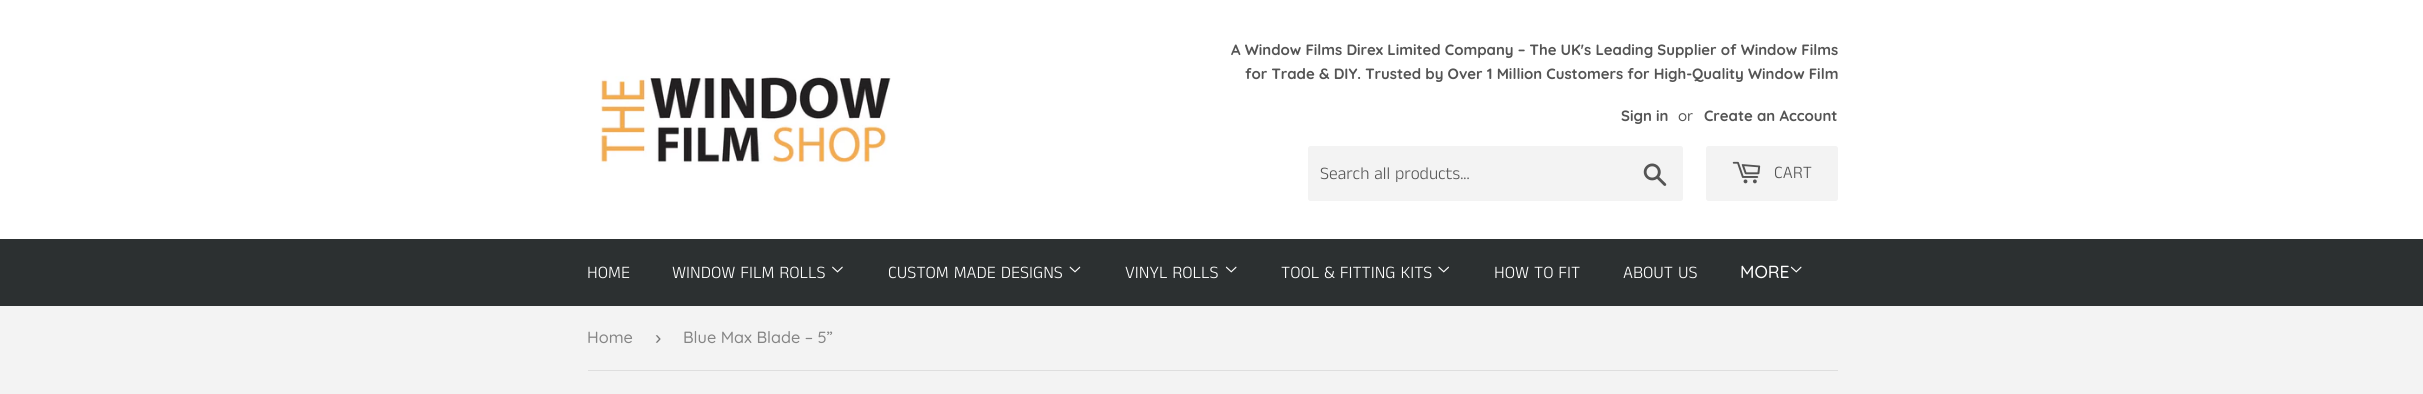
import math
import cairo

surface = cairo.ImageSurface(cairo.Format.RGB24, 2423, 394)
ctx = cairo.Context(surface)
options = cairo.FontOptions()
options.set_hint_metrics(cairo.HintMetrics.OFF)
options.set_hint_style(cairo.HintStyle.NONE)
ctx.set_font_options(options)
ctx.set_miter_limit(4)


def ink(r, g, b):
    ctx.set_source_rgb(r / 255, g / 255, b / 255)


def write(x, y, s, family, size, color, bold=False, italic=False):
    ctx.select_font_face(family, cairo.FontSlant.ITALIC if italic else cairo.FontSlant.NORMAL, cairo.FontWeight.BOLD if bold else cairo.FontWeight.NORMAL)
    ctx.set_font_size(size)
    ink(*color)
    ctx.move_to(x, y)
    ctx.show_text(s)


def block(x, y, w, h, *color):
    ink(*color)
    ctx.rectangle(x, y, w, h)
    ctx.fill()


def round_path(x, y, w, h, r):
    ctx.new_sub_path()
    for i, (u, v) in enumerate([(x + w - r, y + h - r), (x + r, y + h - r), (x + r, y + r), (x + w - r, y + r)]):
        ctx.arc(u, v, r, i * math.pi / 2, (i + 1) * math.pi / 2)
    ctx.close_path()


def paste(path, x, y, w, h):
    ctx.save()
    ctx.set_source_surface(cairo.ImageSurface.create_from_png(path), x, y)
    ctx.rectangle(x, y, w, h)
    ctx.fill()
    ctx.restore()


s1 = dict(family="Quicksand", size=14.9, color=(84, 84, 84), bold=True)
s2 = dict(family="Quicksand Medium", size=14.9, color=(84, 84, 84))
s3 = dict(family="Anek Tamil Light", size=17.5, color=(84, 84, 84))
s4 = dict(family="Anek Tamil Light", size=17.5, color=(255, 255, 255))
s5 = dict(family="Quicksand Medium", size=17.5, color=(255, 255, 255))
s6 = dict(family="Quicksand Medium", size=16.25, color=(133, 133, 133))
s7 = dict(family="Liberation Sans", size=19, color=(118, 118, 118))

ink(243, 243, 243)
ctx.paint()
block(0, 0, 2423, 239, 255, 255, 255)
paste("pic1.png", 600, 76, 291, 91)
write(1231, 55, "A Window Films Direx Limited Company – The UK's Leading Supplier of Window Films", **s1)
write(1245, 79, "for Trade & DIY. Trusted by Over 1 Million Customers for High-Quality Window Film", **s1)
write(1621, 121, "Sign in", **s1)
write(1678, 121, "or", **s2)
write(1704, 121, "Create an Account", **s1)
ink(243, 243, 243)
round_path(1308, 146, 375, 55, 2.5)
ctx.fill()
write(1320, 179, "Search all products...", **s3)
paste("pic2.png", 1643, 163, 24, 23)
ink(243, 243, 243)
round_path(1706, 146, 132, 55, 2.5)
ctx.fill()
paste("pic3.png", 1732, 161, 29, 23)
write(1774, 178, "CART", **s3)
block(0, 239, 2423, 67, 44, 48, 49)
write(587, 278, "HOME", **s4)
write(672, 278, "WINDOW FILM ROLLS", **s4)
paste("pic4.png", 832, 266, 11, 7)
write(888, 278, "CUSTOM MADE DESIGNS", **s4)
paste("pic5.png", 1069, 266, 12, 7)
write(1125, 278, "VINYL ROLLS", **s4)
paste("pic6.png", 1225, 266, 12, 7)
write(1281, 278, "TOOL & FITTING KITS", **s4)
paste("pic7.png", 1438, 266, 11, 7)
write(1494, 278, "HOW TO FIT", **s4)
write(1623, 278, "ABOUT US", **s4)
write(1740, 278, "MORE", **s5)
paste("pic6.png", 1790, 266, 12, 7)
block(588, 370, 1250, 1, 222, 222, 222)
write(587, 343, "Home", **s6)
write(655, 344, "›", **s7)
write(683, 343, "Blue Max Blade – 5”", **s6)
surface.write_to_png("screenshot.png")
